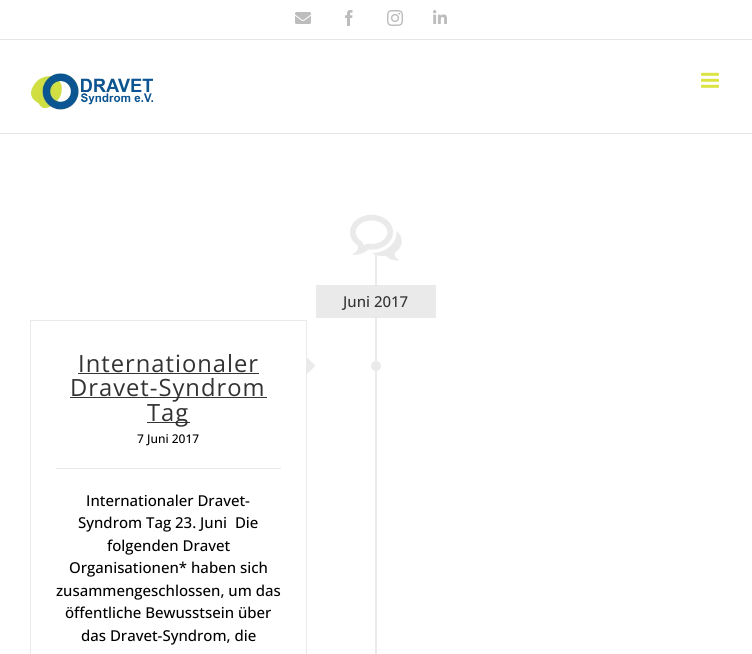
import math
import cairo

surface = cairo.ImageSurface(cairo.Format.RGB24, 752, 654)
ctx = cairo.Context(surface)
options = cairo.FontOptions()
options.set_hint_metrics(cairo.HintMetrics.OFF)
options.set_hint_style(cairo.HintStyle.NONE)
ctx.set_font_options(options)
ctx.set_miter_limit(4)


def ink(r, g, b):
    ctx.set_source_rgb(r / 255, g / 255, b / 255)


def write(x, y, s, family, size, color, bold=False, italic=False):
    ctx.select_font_face(family, cairo.FontSlant.ITALIC if italic else cairo.FontSlant.NORMAL, cairo.FontWeight.BOLD if bold else cairo.FontWeight.NORMAL)
    ctx.set_font_size(size)
    ink(*color)
    ctx.move_to(x, y)
    ctx.show_text(s)


def write_spaced(x, y, s, letter, word):
    ctx.move_to(x, y)
    for ch in s:
        ctx.show_text(ch)
        ctx.rel_move_to(letter + word * (ch == ' '), 0)


def block(x, y, w, h, *color):
    ink(*color)
    ctx.rectangle(x, y, w, h)
    ctx.fill()


def paste(path, x, y, w, h):
    ctx.save()
    ctx.set_source_surface(cairo.ImageSurface.create_from_png(path), x, y)
    ctx.rectangle(x, y, w, h)
    ctx.fill()
    ctx.restore()


s1 = dict(family="Open Sans Medium", size=15, color=(51, 51, 51))
s2 = dict(family="Open Sans Medium", size=12, color=(0, 0, 0))
s3 = dict(family="Open Sans Medium", size=15, color=(0, 0, 0))

ink(255, 255, 255)
ctx.paint()
block(0, 39, 752, 1, 229, 229, 229)
paste("pic1.png", 295, 12, 16, 12)
paste("pic2.png", 345, 10, 8, 16)
paste("pic3.png", 387, 10, 16, 16)
paste("pic4.png", 433, 10, 14, 14)
block(0, 133, 752, 1, 229, 229, 229)
paste("pic5.png", 30, 73, 124, 37)
paste("pic6.png", 701, 72, 18, 16)
paste("pic7.png", 350, 214, 52, 47)
block(375, 255, 2, 399, 235, 234, 234)
block(316, 285, 120, 33, 235, 234, 234)
write(343, 307, "Juni 2017", **s1)
block(30, 320, 277, 1, 234, 234, 234)
block(306, 320, 1, 334, 234, 234, 234)
block(30, 320, 1, 334, 234, 234, 234)
ctx.select_font_face("Open Sans")
ctx.set_font_size(23.75)
ink(51, 51, 51)
write_spaced(78, 372, "Internationaler", 1, 0)
block(78, 373, 181, 1, 51, 51, 51)
block(70, 397, 197, 1, 51, 51, 51)
write_spaced(70, 396, "Dravet-Syndrom", 1, 0)
block(147, 422, 43, 1, 51, 51, 51)
write_spaced(147, 421, "Tag", 1, 0)
write(137, 443, "7 Juni 2017", **s2)
block(56, 468, 225, 1, 234, 232, 232)
write(86, 506, "Internationaler Dravet-", **s3)
write(78, 528, "Syndrom Tag 23. Juni  Die", **s3)
write(107, 551, "folgenden Dravet", **s3)
write(69, 573, "Organisationen* haben sich", **s3)
write(56, 596, "zusammengeschlossen, um das", **s3)
write(65, 618, "öffentliche Bewusstsein über", **s3)
write(81, 641, "das Dravet-Syndrom, die", **s3)
paste("pic8.png", 307, 358, 8, 16)
ink(235, 234, 234)
ctx.arc(376, 366, 5, 0, 2 * math.pi)
ctx.fill()
surface.write_to_png("screenshot.png")
